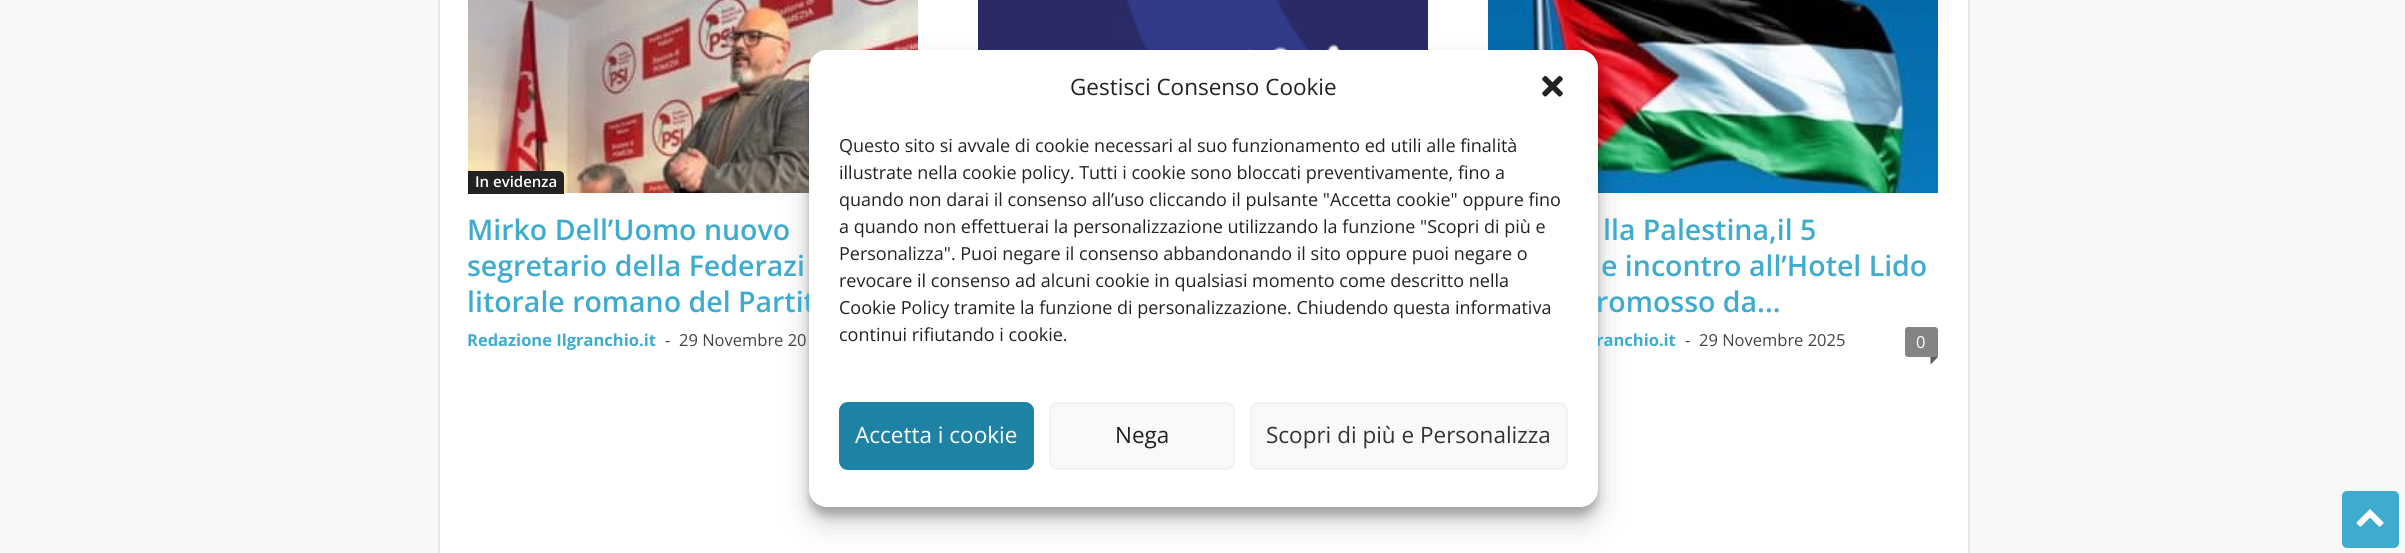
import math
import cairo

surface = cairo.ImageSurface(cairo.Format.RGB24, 2405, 553)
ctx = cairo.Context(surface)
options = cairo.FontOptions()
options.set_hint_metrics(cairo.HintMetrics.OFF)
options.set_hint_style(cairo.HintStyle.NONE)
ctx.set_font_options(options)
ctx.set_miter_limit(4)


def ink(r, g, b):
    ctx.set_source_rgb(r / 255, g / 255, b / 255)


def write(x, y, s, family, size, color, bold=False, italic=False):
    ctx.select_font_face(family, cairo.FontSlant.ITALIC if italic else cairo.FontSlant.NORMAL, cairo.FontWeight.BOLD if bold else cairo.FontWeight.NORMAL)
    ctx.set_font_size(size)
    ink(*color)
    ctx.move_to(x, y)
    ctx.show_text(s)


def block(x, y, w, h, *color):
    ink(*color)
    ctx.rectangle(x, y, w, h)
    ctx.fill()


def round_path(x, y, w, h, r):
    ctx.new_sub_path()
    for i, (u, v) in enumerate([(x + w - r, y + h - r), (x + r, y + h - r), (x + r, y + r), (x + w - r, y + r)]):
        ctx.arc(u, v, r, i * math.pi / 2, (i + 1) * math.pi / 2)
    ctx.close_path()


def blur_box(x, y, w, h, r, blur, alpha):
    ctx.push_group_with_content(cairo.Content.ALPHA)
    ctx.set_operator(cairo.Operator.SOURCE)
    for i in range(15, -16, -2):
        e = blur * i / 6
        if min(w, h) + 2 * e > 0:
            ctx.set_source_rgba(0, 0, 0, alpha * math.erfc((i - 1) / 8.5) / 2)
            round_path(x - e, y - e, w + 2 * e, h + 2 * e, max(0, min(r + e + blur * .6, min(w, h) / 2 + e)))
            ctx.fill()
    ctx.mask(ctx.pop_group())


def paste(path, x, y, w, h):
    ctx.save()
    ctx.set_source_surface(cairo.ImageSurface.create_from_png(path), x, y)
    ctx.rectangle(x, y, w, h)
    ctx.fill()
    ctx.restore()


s1 = dict(family="Open Sans SemiBold", size=28.5, color=(63, 171, 207))
s2 = dict(family="Open Sans", size=16.5, color=(63, 171, 207), bold=True)
s3 = dict(family="Open Sans", size=22.5, color=(34, 34, 34))
s4 = dict(family="Open Sans", size=18, color=(34, 34, 34))
s5 = dict(family="Open Sans", size=22.5, color=(255, 255, 255))
s6 = dict(family="Open Sans", size=22.5, color=(51, 51, 51))
s7 = dict(family="Open Sans SemiBold", size=15, color=(255, 255, 255))
s8 = dict(family="Open Sans", size=16.5, color=(68, 68, 68))
s9 = dict(family="Open Sans", size=16.5, color=(255, 255, 255))

ink(248, 248, 248)
ctx.paint()
block(440, 0, 1528, 553, 255, 255, 255)
paste("pic2.png", 978, 0, 450, 50)
paste("pic3.png", 468, 0, 450, 193)
paste("pic4.png", 1488, 0, 450, 193)
ink(0, 0, 0)
blur_box(809, 59, 789, 457, 18, 4.5, 0.23)
blur_box(809, 65, 789, 457, 18, 15, 0.19)
write(467, 312, "litorale romano del Partit", **s1)
write(1596, 346, "ranchio.it", **s2)
ink(255, 255, 255)
round_path(809, 50, 789, 457, 18)
ctx.fill()
write(1070, 95, "Gestisci Consenso Cookie", **s3)
paste("pic1.png", 1542, 76, 21, 21)
write(839, 152, "Questo sito si avvale di cookie necessari al suo funzionamento ed utili alle finalità", **s4)
write(839, 179, "illustrate nella cookie policy. Tutti i cookie sono bloccati preventivamente, fino a", **s4)
write(839, 206, "quando non darai il consenso all’uso cliccando il pulsante \"Accetta cookie\" oppure fino", **s4)
write(839, 233, "a quando non effettuerai la personalizzazione utilizzando la funzione \"Scopri di più e", **s4)
write(839, 260, "Personalizza\". Puoi negare il consenso abbandonando il sito oppure puoi negare o", **s4)
write(839, 287, "revocare il consenso ad alcuni cookie in qualsiasi momento come descritto nella", **s4)
write(839, 314, "Cookie Policy tramite la funzione di personalizzazione. Chiudendo questa informativa", **s4)
write(839, 341, "continui rifiutando i cookie.", **s4)
ink(30, 130, 164)
round_path(840, 403, 193, 66, 8)
ctx.fill_preserve()
ctx.stroke()
write(855, 443, "Accetta i cookie", **s5)
ink(249, 249, 249)
round_path(1050, 403, 184, 66, 8)
ctx.fill_preserve()
ink(242, 242, 242)
ctx.stroke()
write(1115, 443, "Nega", **s3)
ink(249, 249, 249)
round_path(1251, 403, 316, 66, 8)
ctx.fill_preserve()
ink(242, 242, 242)
ctx.stroke()
write(1266, 443, "Scopri di più e Personalizza", **s6)
block(438, 0, 2, 553, 230, 230, 230)
ink(34, 34, 34)
ctx.new_path()
ctx.move_to(468, 171)
ctx.line_to(559, 171)
ctx.curve_to(562, 171, 564, 173, 564, 176)
ctx.line_to(564, 194)
ctx.line_to(468, 194)
ctx.close_path()
ctx.fill()
write(475, 187, "In evidenza", **s7)
write(467, 240, "Mirko Dell’Uomo nuovo", **s1)
write(467, 276, "segretario della Federazi", **s1)
write(467, 346, "Redazione Ilgranchio.it", **s2)
write(665, 346, "-", **s8)
write(679, 346, "29 Novembre 20", **s8)
write(1603, 240, "lla Palestina,il 5", **s1)
write(1601, 276, "e incontro all’Hotel Lido", **s1)
write(1596, 312, "romosso da...", **s1)
write(1685, 346, "-", **s8)
write(1699, 346, "29 Novembre 2025", **s8)
ink(132, 132, 132)
ctx.new_path()
ctx.move_to(1908, 327)
ctx.line_to(1935, 327)
ctx.curve_to(1936.5, 327, 1938, 328.5, 1938, 330)
ctx.line_to(1938, 357)
ctx.line_to(1908, 357)
ctx.curve_to(1906.5, 357, 1905, 355.5, 1905, 354)
ctx.line_to(1905, 330)
ctx.curve_to(1905, 328.5, 1906.5, 327, 1908, 327)
ctx.close_path()
ctx.fill()
write(1916, 348, "0", **s9)
ink(91, 91, 91)
ctx.new_path()
ctx.move_to(1930.5, 357)
ctx.line_to(1938, 357)
ctx.line_to(1930.5, 364.5)
ctx.close_path()
ctx.fill()
block(1968, 0, 2, 553, 230, 230, 230)
ink(63, 171, 207)
round_path(2342, 491, 57, 57, 5)
ctx.fill()
paste("pic5.png", 2356, 509, 28, 18)
surface.write_to_png("screenshot.png")
